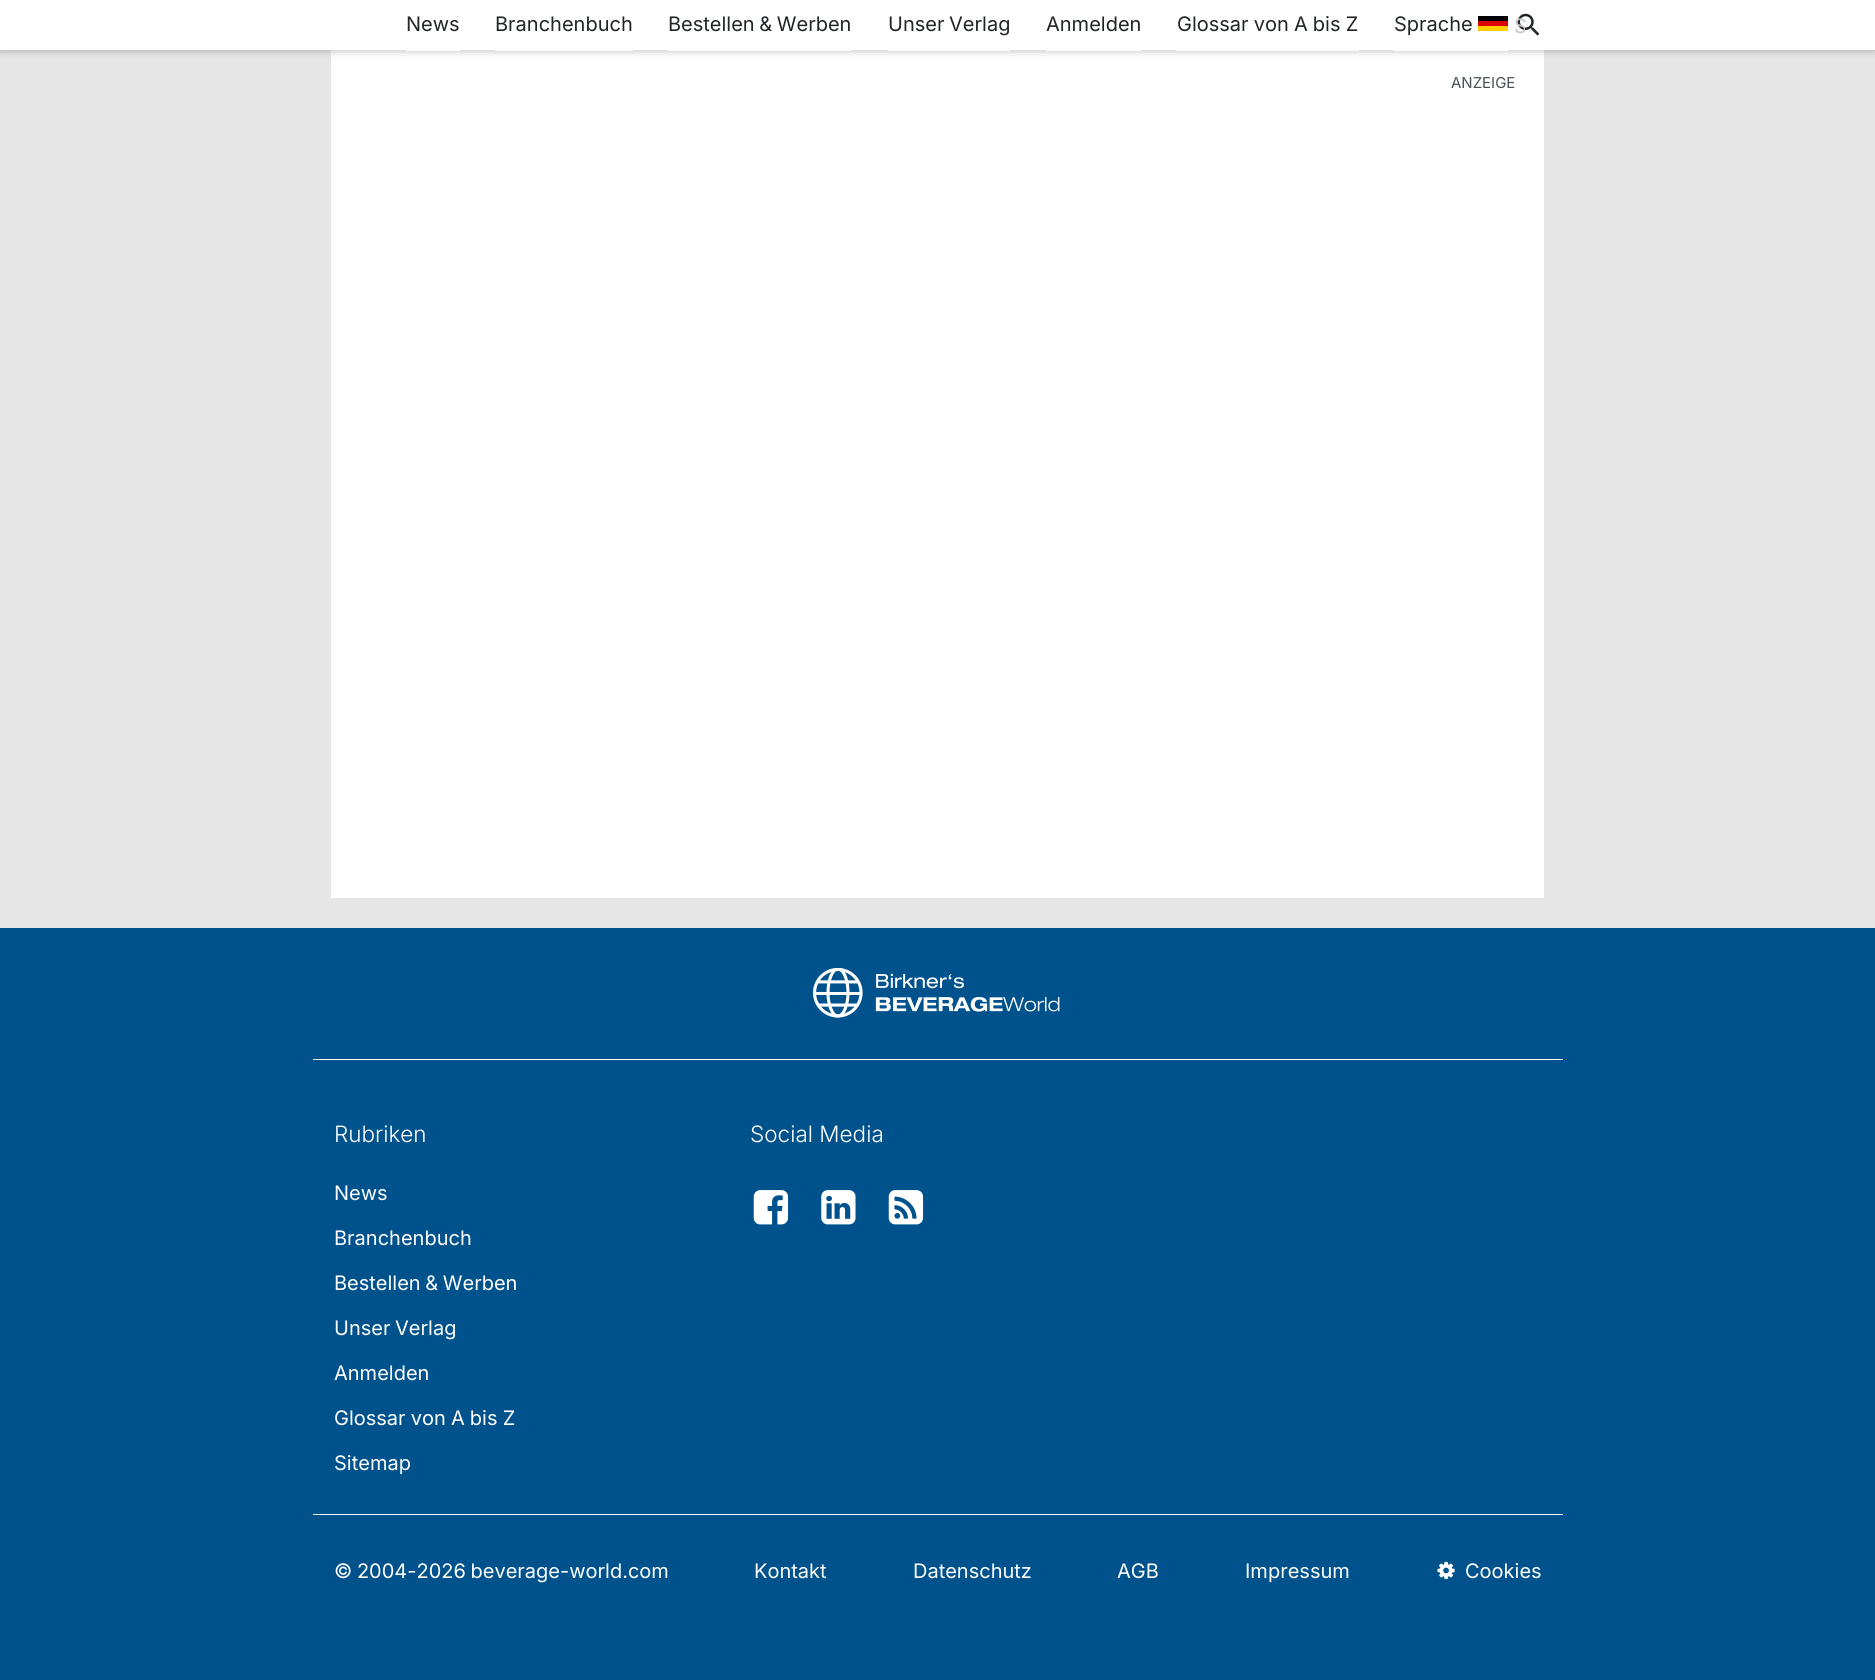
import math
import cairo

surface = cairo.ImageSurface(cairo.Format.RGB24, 1875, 1680)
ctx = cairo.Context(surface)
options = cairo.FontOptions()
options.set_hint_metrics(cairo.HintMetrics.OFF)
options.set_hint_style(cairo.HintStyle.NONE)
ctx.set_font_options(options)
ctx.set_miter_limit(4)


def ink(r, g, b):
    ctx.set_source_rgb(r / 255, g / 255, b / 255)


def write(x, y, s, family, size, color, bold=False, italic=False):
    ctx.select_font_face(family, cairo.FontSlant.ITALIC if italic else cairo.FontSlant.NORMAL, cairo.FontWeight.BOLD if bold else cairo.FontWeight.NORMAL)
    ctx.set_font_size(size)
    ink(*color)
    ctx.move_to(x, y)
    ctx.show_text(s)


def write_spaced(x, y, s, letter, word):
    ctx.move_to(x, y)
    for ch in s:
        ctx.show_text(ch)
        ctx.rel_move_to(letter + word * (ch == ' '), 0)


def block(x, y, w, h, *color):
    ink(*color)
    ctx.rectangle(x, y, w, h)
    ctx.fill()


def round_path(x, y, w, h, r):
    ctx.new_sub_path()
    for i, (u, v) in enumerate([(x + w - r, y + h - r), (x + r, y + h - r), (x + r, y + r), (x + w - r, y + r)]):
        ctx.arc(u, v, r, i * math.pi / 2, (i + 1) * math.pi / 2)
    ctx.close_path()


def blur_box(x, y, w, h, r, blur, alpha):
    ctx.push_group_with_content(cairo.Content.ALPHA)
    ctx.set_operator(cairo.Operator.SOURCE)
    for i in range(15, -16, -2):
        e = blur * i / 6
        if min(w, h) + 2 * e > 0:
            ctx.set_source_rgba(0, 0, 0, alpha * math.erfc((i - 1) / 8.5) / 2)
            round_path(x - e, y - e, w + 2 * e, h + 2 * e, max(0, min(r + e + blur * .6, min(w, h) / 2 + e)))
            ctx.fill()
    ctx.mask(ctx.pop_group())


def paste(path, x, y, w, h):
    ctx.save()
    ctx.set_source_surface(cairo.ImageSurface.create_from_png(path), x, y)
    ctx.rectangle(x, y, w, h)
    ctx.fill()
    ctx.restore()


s1 = dict(family="Inter", size=20, color=(33, 37, 41))
s2 = dict(family="Inter", size=20, color=(199, 200, 201))
s3 = dict(family="Inter", size=15, color=(73, 80, 87))
s4 = dict(family="Inter Light", size=22.5, color=(255, 255, 255))
s5 = dict(family="Inter", size=20, color=(255, 255, 255))

ink(230, 230, 230)
ctx.paint()
block(331, 50, 1213, 848, 255, 255, 255)
ink(32, 33, 36)
blur_box(0, 1, 1875, 50, 0, 4, 0.28)
block(0, 0, 1875, 50, 255, 255, 255)
block(406, 50, 54, 1, 255, 255, 255)
write(406, 31, "News", **s1)
block(495, 50, 138, 1, 255, 255, 255)
write(495, 31, "Branchenbuch", **s1)
block(668, 50, 183, 1, 255, 255, 255)
ink(33, 37, 41)
write_spaced(668, 31, "Bestellen & Werben", 0, -1)
block(888, 50, 122, 1, 255, 255, 255)
ink(33, 37, 41)
write_spaced(888, 31, "Unser Verlag", 0, -1)
block(1046, 50, 95, 1, 255, 255, 255)
write(1046, 31, "Anmelden", **s1)
block(1176, 50, 183, 1, 255, 255, 255)
ink(33, 37, 41)
write_spaced(1177, 31, "Glossar von A bis Z", 0, -0.5)
block(1394, 50, 114, 1, 255, 255, 255)
write(1394, 31, "Sprache", **s1)
block(1478, 16, 30, 5, 0, 0, 0)
block(1478, 21, 30, 5, 221, 0, 0)
block(1478, 26, 30, 5, 255, 206, 0)
paste("pic1.png", 1517, 13, 23, 23)
ctx.save()
ctx.rectangle(1514, 13, 11, 25)
ctx.clip()
write(1514, 33, "S", **s2)
ctx.restore()
write(1451, 88, "ANZEIGE", **s3)
block(0, 928, 1875, 752, 0, 82, 141)
block(313, 1059, 1250, 1, 255, 255, 255)
paste("pic2.png", 813, 968, 247, 50)
write(334, 1142, "Rubriken", **s4)
write(334, 1200, "News", **s5)
write(334, 1245, "Branchenbuch", **s5)
write_spaced(334, 1290, "Bestellen & Werben", 0, -1)
write_spaced(334, 1335, "Unser Verlag", 0, -1)
write(334, 1380, "Anmelden", **s5)
write_spaced(334, 1425, "Glossar von A bis Z", 0, -0.5)
write(334, 1470, "Sitemap", **s5)
write(750, 1142, "Social Media", **s4)
paste("pic3.png", 753, 1190, 36, 35)
paste("pic4.png", 821, 1190, 35, 35)
paste("pic5.png", 888, 1190, 36, 35)
block(313, 1514, 1250, 1, 255, 255, 255)
ctx.select_font_face("Inter")
ctx.set_font_size(20)
write_spaced(334, 1578, "© 2004-2026 beverage-world.com", 0, -1)
write(754, 1578, "Kontakt", **s5)
write(913, 1578, "Datenschutz", **s5)
write(1117, 1578, "AGB", **s5)
write(1245, 1578, "Impressum", **s5)
paste("pic6.png", 1437, 1561, 18, 19)
write(1465, 1578, "Cookies", **s5)
surface.write_to_png("screenshot.png")
